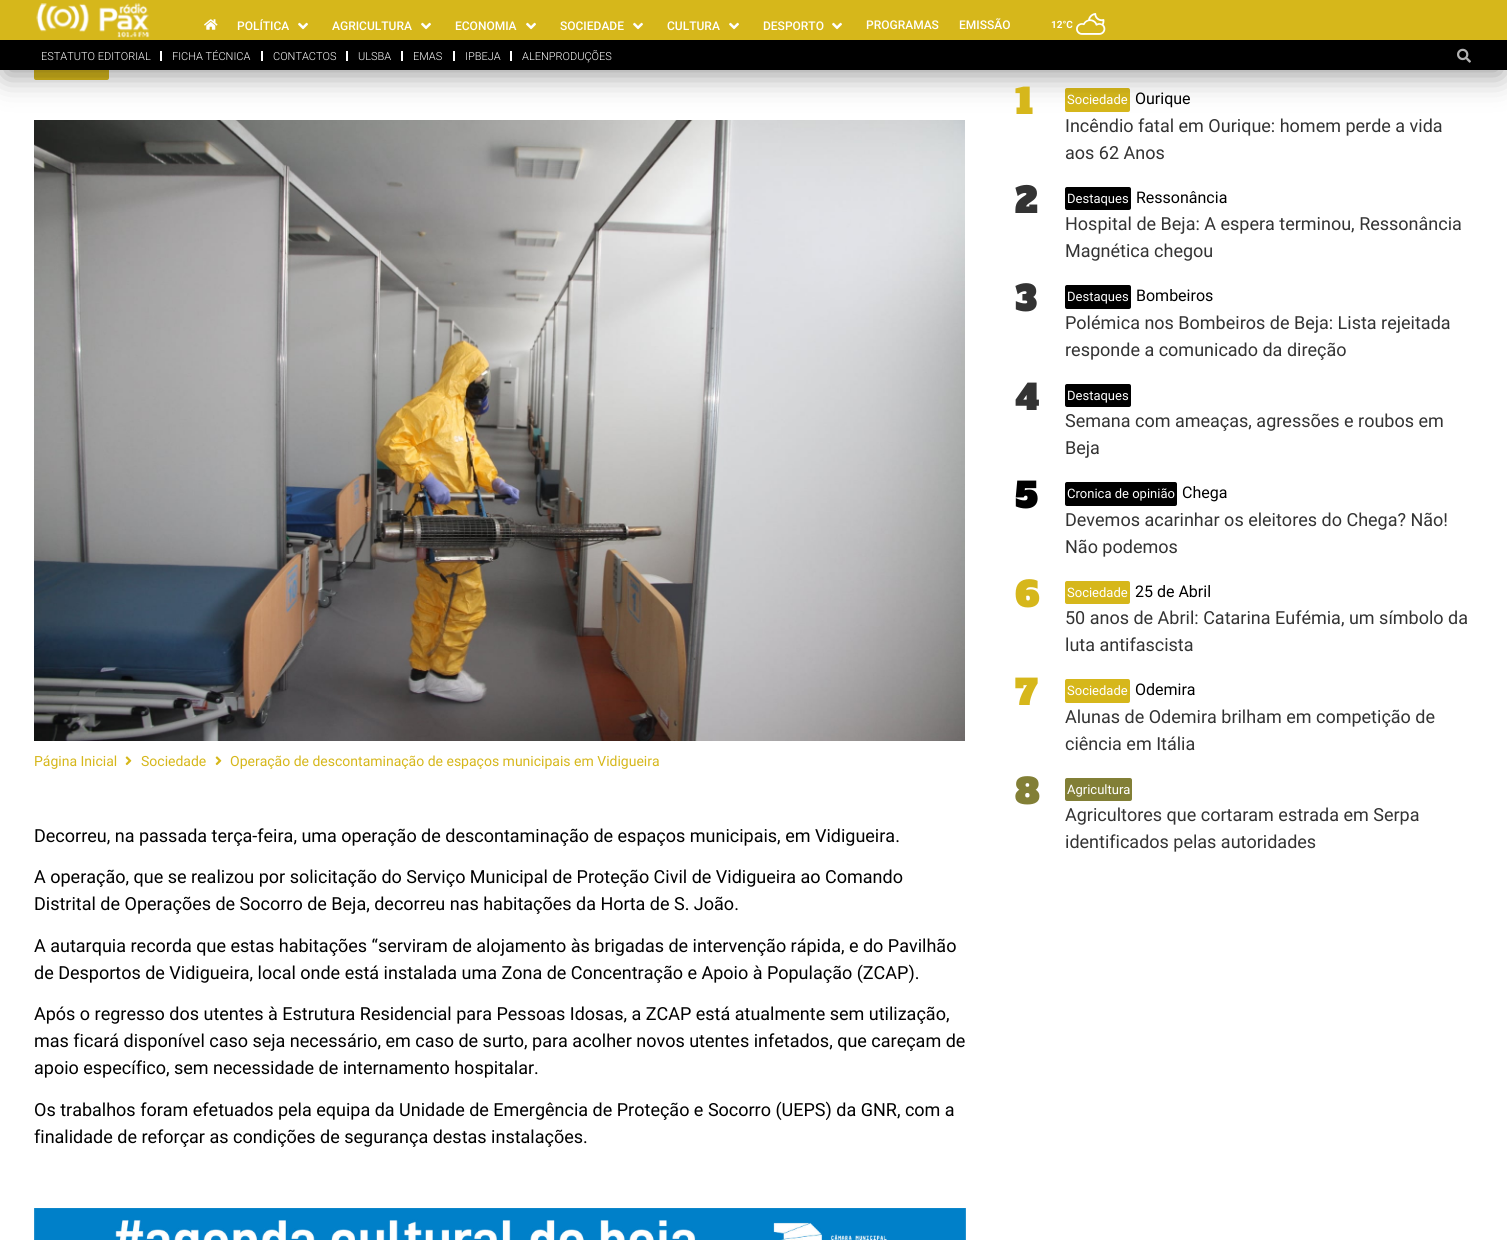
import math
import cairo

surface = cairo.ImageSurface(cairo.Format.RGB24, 1507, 1240)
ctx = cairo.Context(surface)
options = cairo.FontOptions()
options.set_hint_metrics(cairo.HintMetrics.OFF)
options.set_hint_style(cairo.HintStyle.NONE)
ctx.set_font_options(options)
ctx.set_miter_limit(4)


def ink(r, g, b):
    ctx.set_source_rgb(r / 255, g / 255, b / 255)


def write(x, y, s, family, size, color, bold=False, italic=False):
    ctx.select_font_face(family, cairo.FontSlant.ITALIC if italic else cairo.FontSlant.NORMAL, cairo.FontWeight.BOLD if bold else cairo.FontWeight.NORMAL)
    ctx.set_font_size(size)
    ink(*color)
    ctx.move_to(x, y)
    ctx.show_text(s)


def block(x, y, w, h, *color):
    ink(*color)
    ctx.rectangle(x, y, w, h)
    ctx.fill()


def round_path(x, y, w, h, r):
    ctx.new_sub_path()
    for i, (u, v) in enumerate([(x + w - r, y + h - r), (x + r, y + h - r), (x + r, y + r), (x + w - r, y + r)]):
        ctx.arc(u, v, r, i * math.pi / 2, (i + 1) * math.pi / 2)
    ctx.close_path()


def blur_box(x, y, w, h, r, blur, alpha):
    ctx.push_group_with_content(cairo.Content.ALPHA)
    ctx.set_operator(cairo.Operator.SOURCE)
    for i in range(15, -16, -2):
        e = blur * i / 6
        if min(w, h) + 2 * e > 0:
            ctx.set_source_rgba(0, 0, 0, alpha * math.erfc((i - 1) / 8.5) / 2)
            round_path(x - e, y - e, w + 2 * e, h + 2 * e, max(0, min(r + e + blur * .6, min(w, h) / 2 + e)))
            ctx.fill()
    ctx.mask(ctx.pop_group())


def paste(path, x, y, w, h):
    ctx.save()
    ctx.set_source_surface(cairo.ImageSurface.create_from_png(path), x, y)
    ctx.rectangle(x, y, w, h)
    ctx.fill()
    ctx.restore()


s1 = dict(family="Roboto Medium", size=12, color=(255, 255, 255))
s2 = dict(family="Roboto", size=10, color=(255, 255, 255), bold=True)
s3 = dict(family="Roboto Light", size=11, color=(255, 255, 255))
s4 = dict(family="Alfa Slab One", size=34, color=(214, 183, 27), bold=True)
s5 = dict(family="Roboto", size=13, color=(255, 255, 255))
s6 = dict(family="Roboto", size=16, color=(0, 0, 0))
s7 = dict(family="Roboto", size=18, color=(51, 51, 51))
s8 = dict(family="Alfa Slab One", size=34, color=(51, 51, 51), bold=True)
s9 = dict(family="Alfa Slab One", size=34, color=(0, 0, 0), bold=True)
s10 = dict(family="Alfa Slab One", size=34, color=(130, 127, 54), bold=True)
s11 = dict(family="Roboto", size=14, color=(214, 183, 27))
s12 = dict(family="Roboto", size=18, color=(0, 0, 0))

ink(255, 255, 255)
ctx.paint()
ink(214, 183, 27)
round_path(1065, 88, 65, 24, 2)
ctx.fill()
round_path(34, 55, 75, 25, 2)
ctx.fill()
paste("pic6.png", 34, 120, 931, 621)
ink(7, 7, 7)
blur_box(5, 53, 1497, 22, 0, 15, 0.41)
block(0, 0, 1507, 40, 214, 183, 27)
paste("pic1.png", 36, 3, 114, 35)
paste("pic2.png", 204, 19, 14, 11)
write(237, 30, "POLÍTICA", **s1)
paste("pic3.png", 298, 22, 10, 8)
write(332, 30, "AGRICULTURA", **s1)
paste("pic3.png", 421, 22, 10, 8)
write(455, 30, "ECONOMIA", **s1)
paste("pic3.png", 526, 22, 10, 8)
write(560, 30, "SOCIEDADE", **s1)
paste("pic3.png", 633, 22, 10, 8)
write(667, 30, "CULTURA", **s1)
paste("pic3.png", 729, 22, 10, 8)
write(763, 30, "DESPORTO", **s1)
paste("pic3.png", 832, 22, 10, 8)
write(866, 29, "PROGRAMAS", **s1)
write(959, 29, "EMISSÃO", **s1)
write(1051, 28, "12°C", **s2)
paste("pic4.png", 1076, 13, 30, 22)
block(0, 40, 1507, 30, 0, 0, 0)
write(41, 60, "ESTATUTO EDITORIAL", **s3)
block(160, 51, 2, 10, 255, 255, 255)
write(172, 60, "FICHA TÉCNICA", **s3)
block(261, 51, 2, 10, 255, 255, 255)
write(273, 60, "CONTACTOS", **s3)
block(346, 51, 2, 10, 255, 255, 255)
write(358, 60, "ULSBA", **s3)
block(401, 51, 2, 10, 255, 255, 255)
write(413, 60, "EMAS", **s3)
block(453, 51, 2, 10, 255, 255, 255)
write(465, 60, "IPBEJA", **s3)
block(510, 51, 2, 10, 255, 255, 255)
write(522, 60, "ALENPRODUÇÕES", **s3)
paste("pic5.png", 1457, 48, 14, 15)
write(1015, 114, "1", **s4)
write(1067, 104, "Sociedade", **s5)
write(1135, 104, "Ourique", **s6)
write(1065, 132, "Incêndio fatal em Ourique: homem perde a vida", **s7)
write(1065, 159, "aos 62 Anos", **s7)
write(1015, 213, "2", **s8)
ink(0, 0, 0)
round_path(1065, 187, 66, 23, 2)
ctx.fill()
write(1067, 203, "Destaques", **s5)
write(1136, 203, "Ressonância", **s6)
write(1065, 230, "Hospital de Beja: A espera terminou, Ressonância", **s7)
write(1065, 257, "Magnética chegou", **s7)
write(1015, 311, "3", **s8)
ink(0, 0, 0)
round_path(1065, 285, 66, 24, 2)
ctx.fill()
write(1067, 301, "Destaques", **s5)
write(1136, 301, "Bombeiros", **s6)
write(1065, 329, "Polémica nos Bombeiros de Beja: Lista rejeitada", **s7)
write(1065, 356, "responde a comunicado da direção", **s7)
write(1015, 410, "4", **s8)
ink(0, 0, 0)
round_path(1065, 384, 66, 23, 2)
ctx.fill()
write(1067, 400, "Destaques", **s5)
write(1065, 427, "Semana com ameaças, agressões e roubos em", **s7)
write(1065, 454, "Beja", **s7)
write(1015, 508, "5", **s9)
round_path(1065, 482, 112, 24, 2)
ctx.fill()
write(1067, 498, "Cronica de opinião", **s5)
write(1182, 498, "Chega", **s6)
write(1065, 526, "Devemos acarinhar os eleitores do Chega? Não!", **s7)
write(1065, 553, "Não podemos", **s7)
write(1015, 607, "6", **s4)
round_path(1065, 581, 65, 23, 2)
ctx.fill()
write(1067, 597, "Sociedade", **s5)
write(1135, 597, "25 de Abril", **s6)
write(1065, 624, "50 anos de Abril: Catarina Eufémia, um símbolo da", **s7)
write(1065, 651, "luta antifascista", **s7)
write(1015, 705, "7", **s4)
round_path(1065, 679, 65, 24, 2)
ctx.fill()
write(1067, 695, "Sociedade", **s5)
write(1135, 695, "Odemira", **s6)
write(1065, 723, "Alunas de Odemira brilham em competição de", **s7)
write(1065, 750, "ciência em Itália", **s7)
write(1015, 804, "8", **s10)
round_path(1065, 778, 67, 23, 2)
ctx.fill()
write(1067, 794, "Agricultura", **s5)
write(1065, 821, "Agricultores que cortaram estrada em Serpa", **s7)
write(1065, 848, "identificados pelas autoridades", **s7)
write(34, 766, "Página Inicial", **s11)
paste("pic7.png", 125, 756, 7, 10)
write(141, 766, "Sociedade", **s11)
paste("pic7.png", 215, 756, 7, 10)
write(230, 766, "Operação de descontaminação de espaços municipais em Vidigueira", **s11)
write(34, 842, "Decorreu, na passada terça-feira, uma operação de descontaminação de espaços municipais, em Vidigueira.", **s12)
write(34, 883, "A operação, que se realizou por solicitação do Serviço Municipal de Proteção Civil de Vidigueira ao Comando", **s12)
write(34, 910, "Distrital de Operações de Socorro de Beja, decorreu nas habitações da Horta de S. João.", **s12)
write(34, 952, "A autarquia recorda que estas habitações “serviram de alojamento às brigadas de intervenção rápida, e do Pavilhão", **s12)
write(34, 979, "de Desportos de Vidigueira, local onde está instalada uma Zona de Concentração e Apoio à População (ZCAP).", **s12)
write(34, 1020, "Após o regresso dos utentes à Estrutura Residencial para Pessoas Idosas, a ZCAP está atualmente sem utilização,", **s12)
write(34, 1047, "mas ficará disponível caso seja necessário, em caso de surto, para acolher novos utentes infetados, que careçam de", **s12)
write(34, 1074, "apoio específico, sem necessidade de internamento hospitalar.", **s12)
write(34, 1116, "Os trabalhos foram efetuados pela equipa da Unidade de Emergência de Proteção e Socorro (UEPS) da GNR, com a", **s12)
write(34, 1143, "finalidade de reforçar as condições de segurança destas instalações.", **s12)
paste("pic8.png", 34, 1208, 932, 32)
surface.write_to_png("screenshot.png")
